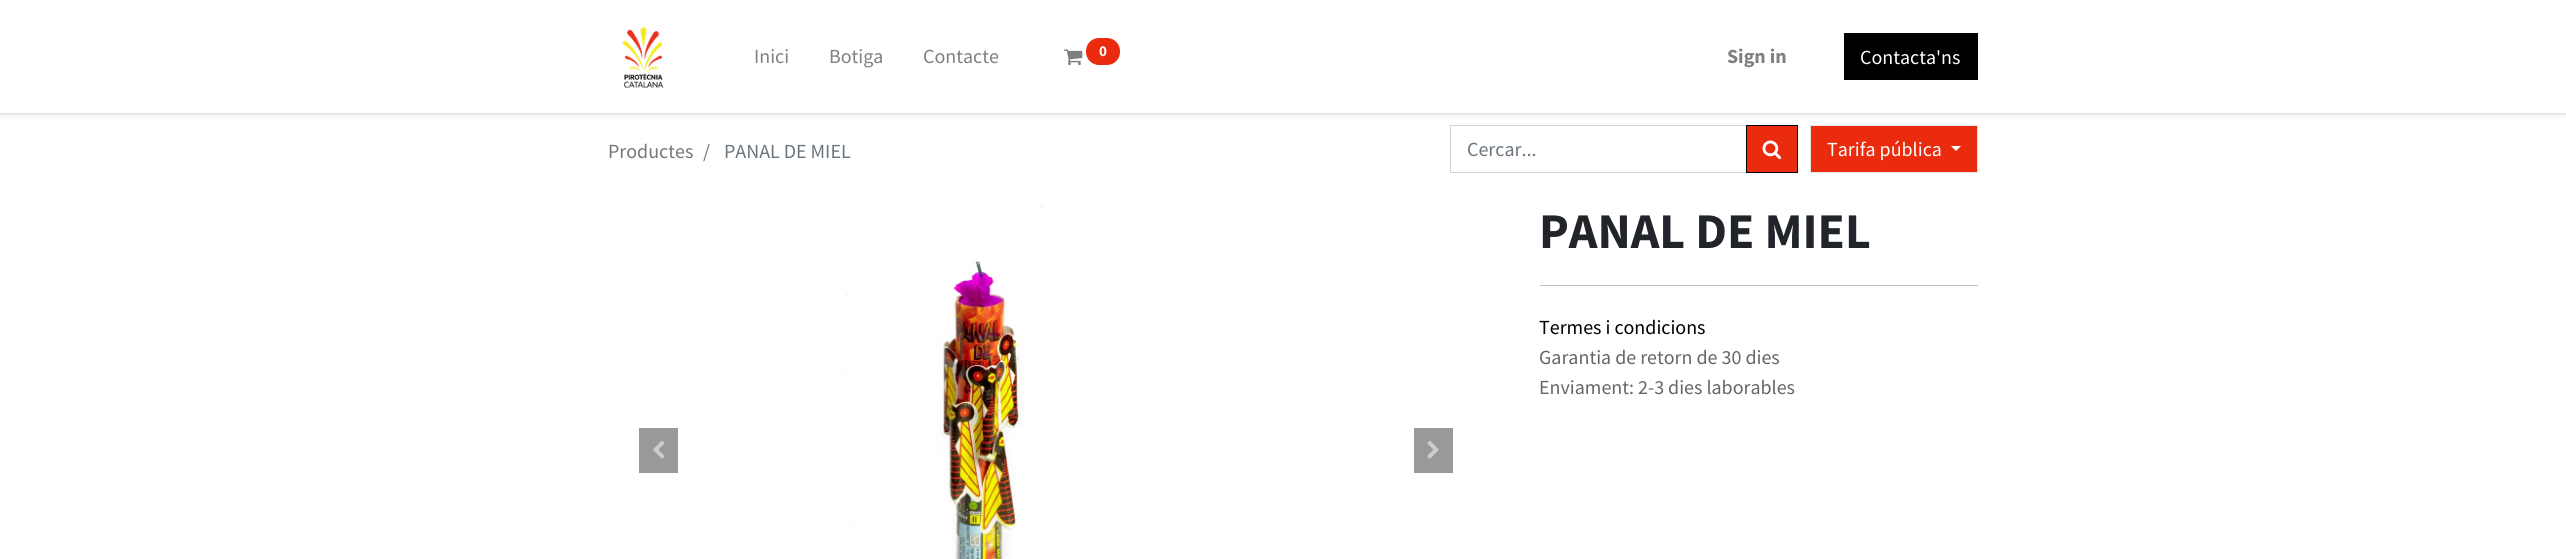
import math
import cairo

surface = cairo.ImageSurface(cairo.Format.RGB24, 2566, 559)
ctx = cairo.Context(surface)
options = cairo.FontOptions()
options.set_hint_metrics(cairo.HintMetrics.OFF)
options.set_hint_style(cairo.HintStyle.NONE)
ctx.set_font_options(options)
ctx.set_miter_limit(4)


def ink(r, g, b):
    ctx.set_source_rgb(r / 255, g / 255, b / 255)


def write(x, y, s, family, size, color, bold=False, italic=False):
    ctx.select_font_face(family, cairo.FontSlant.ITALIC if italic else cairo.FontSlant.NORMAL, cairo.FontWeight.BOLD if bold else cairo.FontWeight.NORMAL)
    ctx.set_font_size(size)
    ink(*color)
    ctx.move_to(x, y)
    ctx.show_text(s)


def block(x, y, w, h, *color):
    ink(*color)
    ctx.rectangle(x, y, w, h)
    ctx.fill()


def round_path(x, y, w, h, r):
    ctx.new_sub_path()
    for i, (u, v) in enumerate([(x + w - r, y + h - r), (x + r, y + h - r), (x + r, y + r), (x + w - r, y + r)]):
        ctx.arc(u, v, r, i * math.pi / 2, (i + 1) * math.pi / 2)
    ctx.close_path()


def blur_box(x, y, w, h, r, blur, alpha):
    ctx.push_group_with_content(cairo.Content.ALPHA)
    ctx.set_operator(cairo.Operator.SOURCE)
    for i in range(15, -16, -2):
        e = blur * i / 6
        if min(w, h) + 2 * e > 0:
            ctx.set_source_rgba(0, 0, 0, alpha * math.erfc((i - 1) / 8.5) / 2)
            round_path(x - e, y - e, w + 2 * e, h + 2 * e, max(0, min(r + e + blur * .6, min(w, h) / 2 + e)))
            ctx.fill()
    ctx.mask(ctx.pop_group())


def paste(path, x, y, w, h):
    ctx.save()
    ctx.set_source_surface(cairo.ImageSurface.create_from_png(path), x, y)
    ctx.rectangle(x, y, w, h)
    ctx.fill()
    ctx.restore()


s1 = dict(family="Source Sans Pro", size=20, color=(128, 128, 128))
s2 = dict(family="Source Sans Pro", size=15, color=(255, 255, 255), bold=True)
s3 = dict(family="Source Sans Pro", size=20, color=(128, 128, 128), bold=True)
s4 = dict(family="Source Sans Pro", size=20, color=(255, 255, 255))
s5 = dict(family="Source Sans Pro", size=20, color=(119, 119, 119))
s6 = dict(family="Source Sans Pro", size=20, color=(108, 117, 125))
s7 = dict(family="Source Sans Pro", size=50, color=(33, 37, 41), bold=True)
s8 = dict(family="Source Sans Pro", size=20, color=(0, 0, 0))
s9 = dict(family="Source Sans Pro", size=20, color=(100, 102, 105))

ink(255, 255, 255)
ctx.paint()
ink(0, 0, 0)
blur_box(0, 0, 2566, 113, 0, 3, 0.25)
block(0, 0, 2566, 113, 255, 255, 255)
paste("pic1.png", 622, 26, 42, 62)
write(754, 63, "Inici", **s1)
write(829, 63, "Botiga", **s1)
write(923, 63, "Contacte", **s1)
paste("pic2.png", 1063, 49, 20, 17)
ink(235, 43, 14)
round_path(1086, 38, 34, 27, 13)
ctx.fill()
write(1099, 56, "0", **s2)
write(1727, 63, "Sign in", **s3)
block(1844, 33, 134, 47, 0, 0, 0)
write(1860, 64, "Contacta'ns", **s4)
write(608, 158, "Productes", **s5)
write(703, 158, "/", **s6)
write(724, 158, "PANAL DE MIEL", **s6)
ctx.rectangle(1450.5, 125.5, 297, 47)
ink(206, 212, 218)
ctx.set_line_width(1)
ctx.stroke()
write(1467, 156, "Cercar...", **s6)
ink(235, 43, 14)
ctx.rectangle(1746.5, 125.5, 51, 47)
ctx.fill_preserve()
ink(0, 0, 0)
ctx.stroke()
paste("pic3.png", 1762, 140, 20, 20)
ink(235, 43, 14)
ctx.rectangle(1810.5, 125.5, 167, 47)
ctx.fill_preserve()
ink(228, 228, 228)
ctx.stroke()
write(1827, 156, "Tarifa pública", **s4)
ctx.new_path()
ctx.move_to(1951, 146)
ctx.line_to(1961, 146)
ctx.line_to(1956, 151)
ctx.close_path()
ctx.fill()
block(639, 428, 39, 45, 153, 153, 153)
paste("pic4.png", 653, 440, 12, 19)
paste("pic5.png", 845, 202, 391, 357)
block(1414, 428, 39, 45, 153, 153, 153)
paste("pic6.png", 1427, 440, 12, 19)
write(1539, 248, "PANAL DE MIEL", **s7)
block(1540, 285, 438, 1, 193, 193, 193)
write(1539, 334, "Termes i condicions", **s8)
write(1539, 364, "Garantia de retorn de 30 dies", **s9)
write(1539, 394, "Enviament: 2-3 dies laborables", **s9)
surface.write_to_png("screenshot.png")
